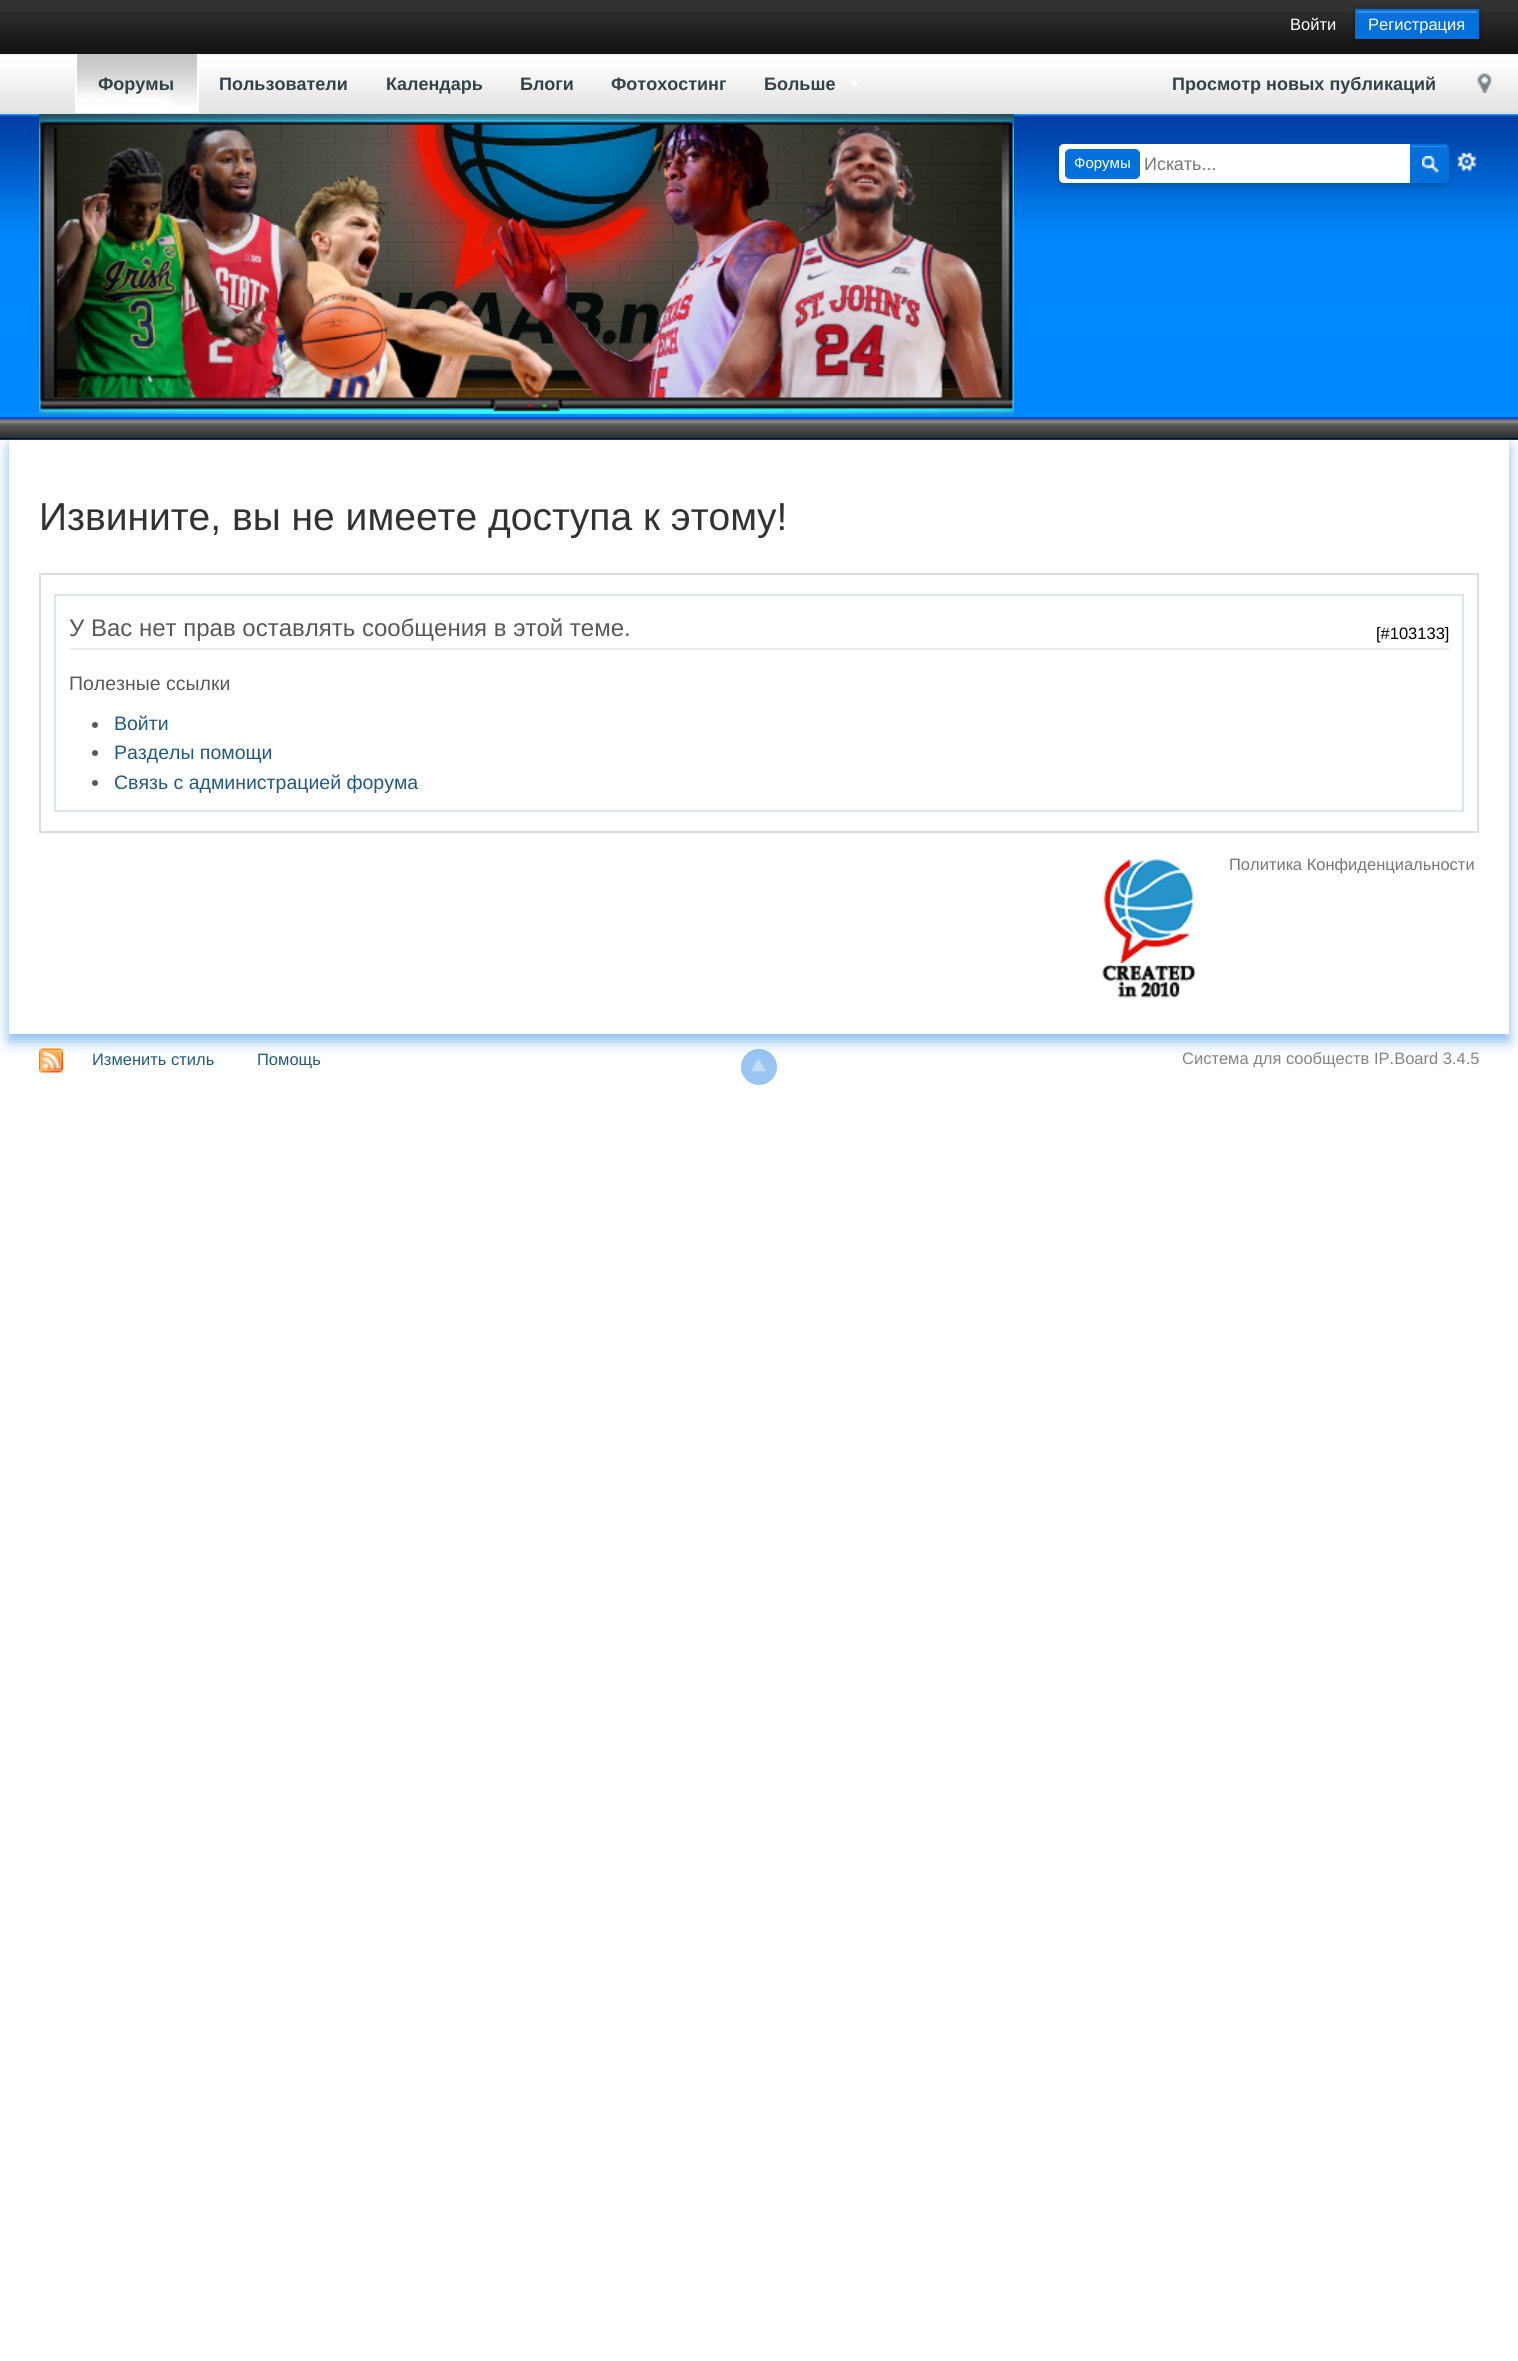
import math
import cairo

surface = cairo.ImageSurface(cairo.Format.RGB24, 1518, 2361)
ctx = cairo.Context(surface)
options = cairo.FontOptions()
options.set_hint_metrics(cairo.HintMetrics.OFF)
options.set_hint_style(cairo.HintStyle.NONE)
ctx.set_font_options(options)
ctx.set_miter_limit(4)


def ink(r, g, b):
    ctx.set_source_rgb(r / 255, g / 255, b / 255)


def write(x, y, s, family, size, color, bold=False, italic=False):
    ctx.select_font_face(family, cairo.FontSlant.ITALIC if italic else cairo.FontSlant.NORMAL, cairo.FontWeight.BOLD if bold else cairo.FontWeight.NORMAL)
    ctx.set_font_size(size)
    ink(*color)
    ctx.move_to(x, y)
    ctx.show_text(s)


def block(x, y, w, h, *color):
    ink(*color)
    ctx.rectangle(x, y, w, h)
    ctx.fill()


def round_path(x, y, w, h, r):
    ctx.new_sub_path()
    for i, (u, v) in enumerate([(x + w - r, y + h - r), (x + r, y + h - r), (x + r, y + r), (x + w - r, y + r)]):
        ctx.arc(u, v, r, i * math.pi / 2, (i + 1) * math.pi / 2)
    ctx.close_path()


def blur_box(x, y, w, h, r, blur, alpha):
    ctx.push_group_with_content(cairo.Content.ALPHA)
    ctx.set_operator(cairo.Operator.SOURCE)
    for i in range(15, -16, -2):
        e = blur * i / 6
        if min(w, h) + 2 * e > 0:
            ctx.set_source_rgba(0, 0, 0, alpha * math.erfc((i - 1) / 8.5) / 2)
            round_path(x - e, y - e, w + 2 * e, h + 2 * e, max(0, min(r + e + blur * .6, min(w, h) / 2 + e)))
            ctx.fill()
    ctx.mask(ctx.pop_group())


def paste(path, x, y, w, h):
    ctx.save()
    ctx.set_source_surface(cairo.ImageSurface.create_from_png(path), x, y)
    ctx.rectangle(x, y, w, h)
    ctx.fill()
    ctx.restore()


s1 = dict(family="Liberation Sans", size=16.5, color=(255, 255, 255))
s2 = dict(family="Liberation Sans", size=18, color=(50, 67, 74), bold=True)
s3 = dict(family="Liberation Sans", size=15, color=(255, 255, 255))
s4 = dict(family="Liberation Sans", size=18, color=(119, 119, 119))
s5 = dict(family="Liberation Sans", size=39, color=(50, 50, 50))
s6 = dict(family="Liberation Sans", size=24, color=(89, 89, 89))
s7 = dict(family="Liberation Sans", size=16.5, color=(0, 0, 0))
s8 = dict(family="Liberation Sans", size=19.5, color=(89, 89, 89))
s9 = dict(family="Liberation Sans", size=19.5, color=(34, 89, 133))
s10 = dict(family="Liberation Sans", size=16.5, color=(119, 119, 119))
s11 = dict(family="Liberation Sans", size=16.5, color=(34, 89, 133))
s12 = dict(family="Liberation Sans", size=16.5, color=(132, 132, 132))

ink(255, 255, 255)
ctx.paint()
block(0, 0, 1518, 12, 50, 50, 50)
paste("pic1.png", 0, 12, 1518, 42)
write(1290, 30, "Войти", **s1)
ink(0, 0, 0)
blur_box(1355, 11, 124, 30, 0, 3, 0.4)
block(1357, 13, 120, 24, 4, 112, 220)
block(1356, 11, 122, 2, 54, 141, 227)
ctx.rectangle(1356, 10, 122, 28)
ink(4, 112, 220)
ctx.stroke()
write(1368, 30, "Регистрация", **s1)
paste("pic2.png", 0, 54, 1518, 60)
block(77, 106, 120, 7, 255, 255, 255)
paste("pic3.png", 77, 54, 120, 52)
block(197, 54, 2, 59, 255, 255, 255)
block(75, 54, 2, 59, 255, 255, 255)
write(98, 90, "Форумы", **s2)
write(219, 90, "Пользователи", **s2)
write(386, 90, "Календарь", **s2)
write(520, 90, "Блоги", **s2)
write(611, 90, "Фотохостинг", **s2)
write(764, 90, "Больше", **s2)
paste("pic4.png", 849, 81, 11, 6)
write(1172, 90, "Просмотр новых публикаций", **s2)
paste("pic5.png", 1477, 73, 15, 20)
block(0, 439, 1518, 1, 4, 112, 220)
paste("pic6.png", 0, 114, 1518, 326)
paste("pic7.png", 39, 114, 975, 300)
paste("pic9.png", 1457, 152, 20, 20)
ink(0, 0, 0)
blur_box(1059, 147, 390, 39, 6, 3, 0.2)
ink(255, 255, 255)
ctx.new_path()
ctx.move_to(1064, 144)
ctx.line_to(1443, 144)
ctx.curve_to(1446.5, 144, 1449, 146.5, 1449, 150)
ctx.line_to(1449, 177)
ctx.curve_to(1449, 180.5, 1446.5, 183, 1443, 183)
ctx.line_to(1064, 183)
ctx.curve_to(1061, 183, 1059, 181, 1059, 178)
ctx.line_to(1059, 149)
ctx.curve_to(1059, 146, 1061, 144, 1064, 144)
ctx.close_path()
ctx.fill()
ink(4, 112, 220)
round_path(1065, 149, 75, 30, 5)
ctx.fill()
write(1074, 168, "Форумы", **s3)
write(1144, 170, "Искать...", **s4)
ink(4, 112, 220)
ctx.new_path()
ctx.move_to(1410, 144)
ctx.line_to(1444, 144)
ctx.curve_to(1447, 144, 1449, 146, 1449, 149)
ctx.line_to(1449, 178)
ctx.curve_to(1449, 181, 1447, 183, 1444, 183)
ctx.line_to(1410, 183)
ctx.close_path()
ctx.fill()
paste("pic8.png", 1422, 156, 17, 17)
ink(54, 141, 227)
ctx.new_path()
ctx.move_to(1412, 147)
ctx.line_to(1444, 147)
ctx.curve_to(1446, 147, 1448, 148, 1448, 150)
ctx.line_to(1448, 149)
ctx.curve_to(1448, 147.5, 1446.5, 146, 1445, 146)
ctx.line_to(1412, 146)
ctx.close_path()
ctx.fill()
ctx.new_path()
ctx.move_to(1411, 145)
ctx.line_to(1444, 145)
ctx.curve_to(1446, 145, 1448, 147, 1448, 149)
ctx.line_to(1448, 178)
ctx.curve_to(1448, 180, 1446, 182, 1444, 182)
ctx.line_to(1411, 182)
ctx.close_path()
ink(4, 112, 220)
ctx.stroke()
ink(4, 112, 220)
blur_box(9, 447, 1500, 594, 0, 7, 0.5)
block(9, 440, 1500, 594, 255, 255, 255)
write(39, 530, "Извините, вы не имеете доступа к этому!", **s5)
ctx.rectangle(40, 574, 1438, 258)
ink(221, 221, 221)
ctx.stroke()
ctx.rectangle(55, 595, 1408, 216)
ink(219, 228, 239)
ctx.stroke()
block(69, 648, 1380, 2, 236, 236, 236)
write(69, 636, "У Вас нет прав оставлять сообщения в этой теме.", **s6)
write(1376, 639, "[#103133]", **s7)
write(69, 690, "Полезные ссылки", **s8)
ink(90, 90, 90)
ctx.new_path()
ctx.arc(95, 725, 3, 0, 2 * math.pi)
ctx.fill()
write(114, 730, "Войти", **s9)
ink(90, 90, 90)
ctx.new_path()
ctx.arc(95, 753, 3, 0, 2 * math.pi)
ctx.fill()
write(114, 759, "Разделы помощи", **s9)
ink(90, 90, 90)
ctx.new_path()
ctx.arc(95, 783, 3, 0, 2 * math.pi)
ctx.fill()
write(114, 789, "Связь с администрацией форума", **s9)
paste("pic10.png", 1102, 859, 94, 139)
write(1229, 870, "Политика Конфиденциальности", **s10)
paste("pic11.png", 39, 1048, 24, 25)
write(92, 1065, "Изменить стиль", **s11)
write(257, 1065, "Помощь", **s11)
ctx.set_source_rgba(0.016, 0.439, 0.863, 0.4)
ctx.new_path()
ctx.arc(759, 1067, 18, 0, 2 * math.pi)
ctx.fill()
paste("pic12.png", 751, 1059, 16, 13)
write(1182, 1064, "Система для сообществ IP.Board 3.4.5", **s12)
surface.write_to_png("screenshot.png")
